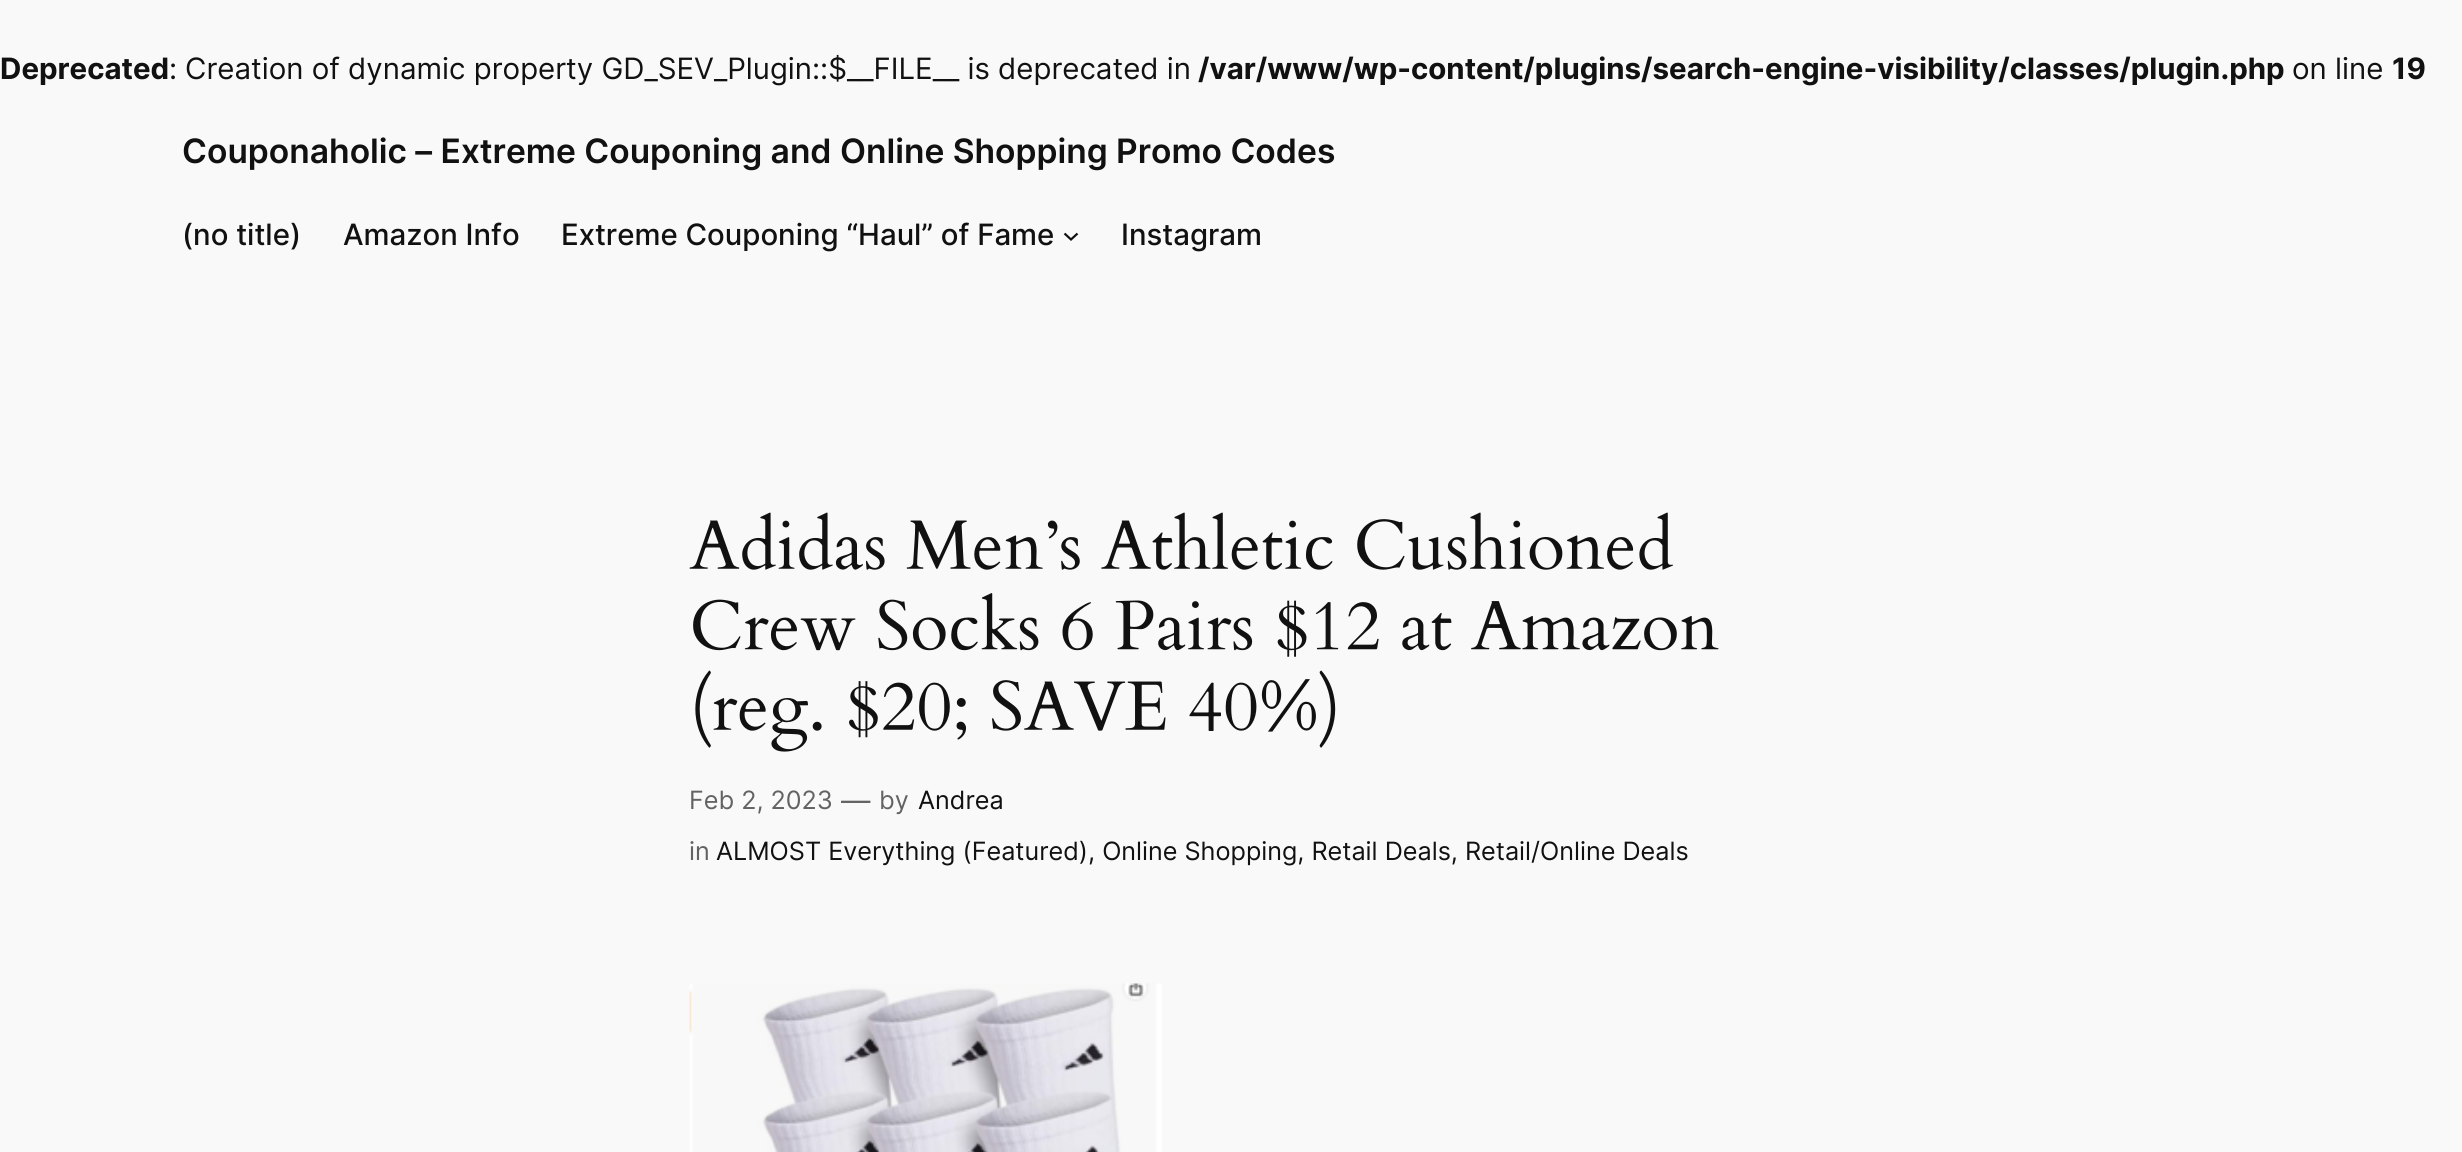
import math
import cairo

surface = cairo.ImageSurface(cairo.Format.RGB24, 2462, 1152)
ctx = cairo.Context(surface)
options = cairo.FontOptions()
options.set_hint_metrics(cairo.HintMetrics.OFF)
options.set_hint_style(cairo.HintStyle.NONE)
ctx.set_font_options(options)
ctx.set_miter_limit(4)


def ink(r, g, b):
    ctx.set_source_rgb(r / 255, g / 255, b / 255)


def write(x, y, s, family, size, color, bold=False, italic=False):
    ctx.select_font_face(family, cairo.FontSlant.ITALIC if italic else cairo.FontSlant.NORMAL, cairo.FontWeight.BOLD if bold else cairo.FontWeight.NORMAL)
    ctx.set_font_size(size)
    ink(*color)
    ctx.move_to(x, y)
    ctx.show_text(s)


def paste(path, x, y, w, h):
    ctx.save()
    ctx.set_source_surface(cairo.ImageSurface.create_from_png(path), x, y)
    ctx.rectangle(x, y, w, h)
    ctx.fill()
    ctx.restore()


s1 = dict(family="Inter", size=29.4, color=(17, 17, 17), bold=True)
s2 = dict(family="Inter", size=29.4, color=(17, 17, 17))
s3 = dict(family="Inter SemiBold", size=33.6, color=(17, 17, 17))
s4 = dict(family="Inter Medium", size=29.4, color=(17, 17, 17))
s5 = dict(family="Inter", size=25.2, color=(99, 99, 99))
s6 = dict(family="Inter", size=29.4, color=(99, 99, 99))
s7 = dict(family="Inter", size=25.2, color=(17, 17, 17))

ink(249, 249, 249)
ctx.paint()
write(0, 79, "Deprecated", **s1)
write(169, 79, ":", **s2)
write(185, 79, "Creation of dynamic property GD_SEV_Plugin::$__FILE__ is deprecated in", **s2)
write(1198, 79, "/var/www/wp-content/plugins/search-engine-visibility/classes/plugin.php", **s1)
write(2292, 79, "on line", **s2)
write(2392, 79, "19", **s1)
write(182, 163, "Couponaholic – Extreme Couponing and Online Shopping Promo Codes", **s3)
write(182, 245, "(no title)", **s4)
write(343, 245, "Amazon Info", **s4)
write(561, 245, "Extreme Couponing “Haul” of Fame", **s4)
ctx.new_path()
ctx.move_to(1064.5, 233.5)
ctx.line_to(1071, 239.5)
ctx.line_to(1077.5, 233.5)
ctx.set_line_width(2.2)
ctx.stroke()
write(1121, 245, "Instagram", **s4)
paste("pic1.png", 689, 512, 984, 58)
paste("pic2.png", 693, 593, 1026, 64)
paste("pic3.png", 695, 670, 641, 82)
write(689, 809, "Feb 2, 2023", **s5)
write(841, 811, "—", **s6)
write(879, 809, "by", **s5)
write(918, 809, "Andrea", **s7)
write(689, 860, "in", **s5)
write(716, 860, "ALMOST Everything (Featured), Online Shopping, Retail Deals, Retail/Online Deals", **s7)
paste("pic4.png", 689, 983, 473, 169)
surface.write_to_png("screenshot.png")
